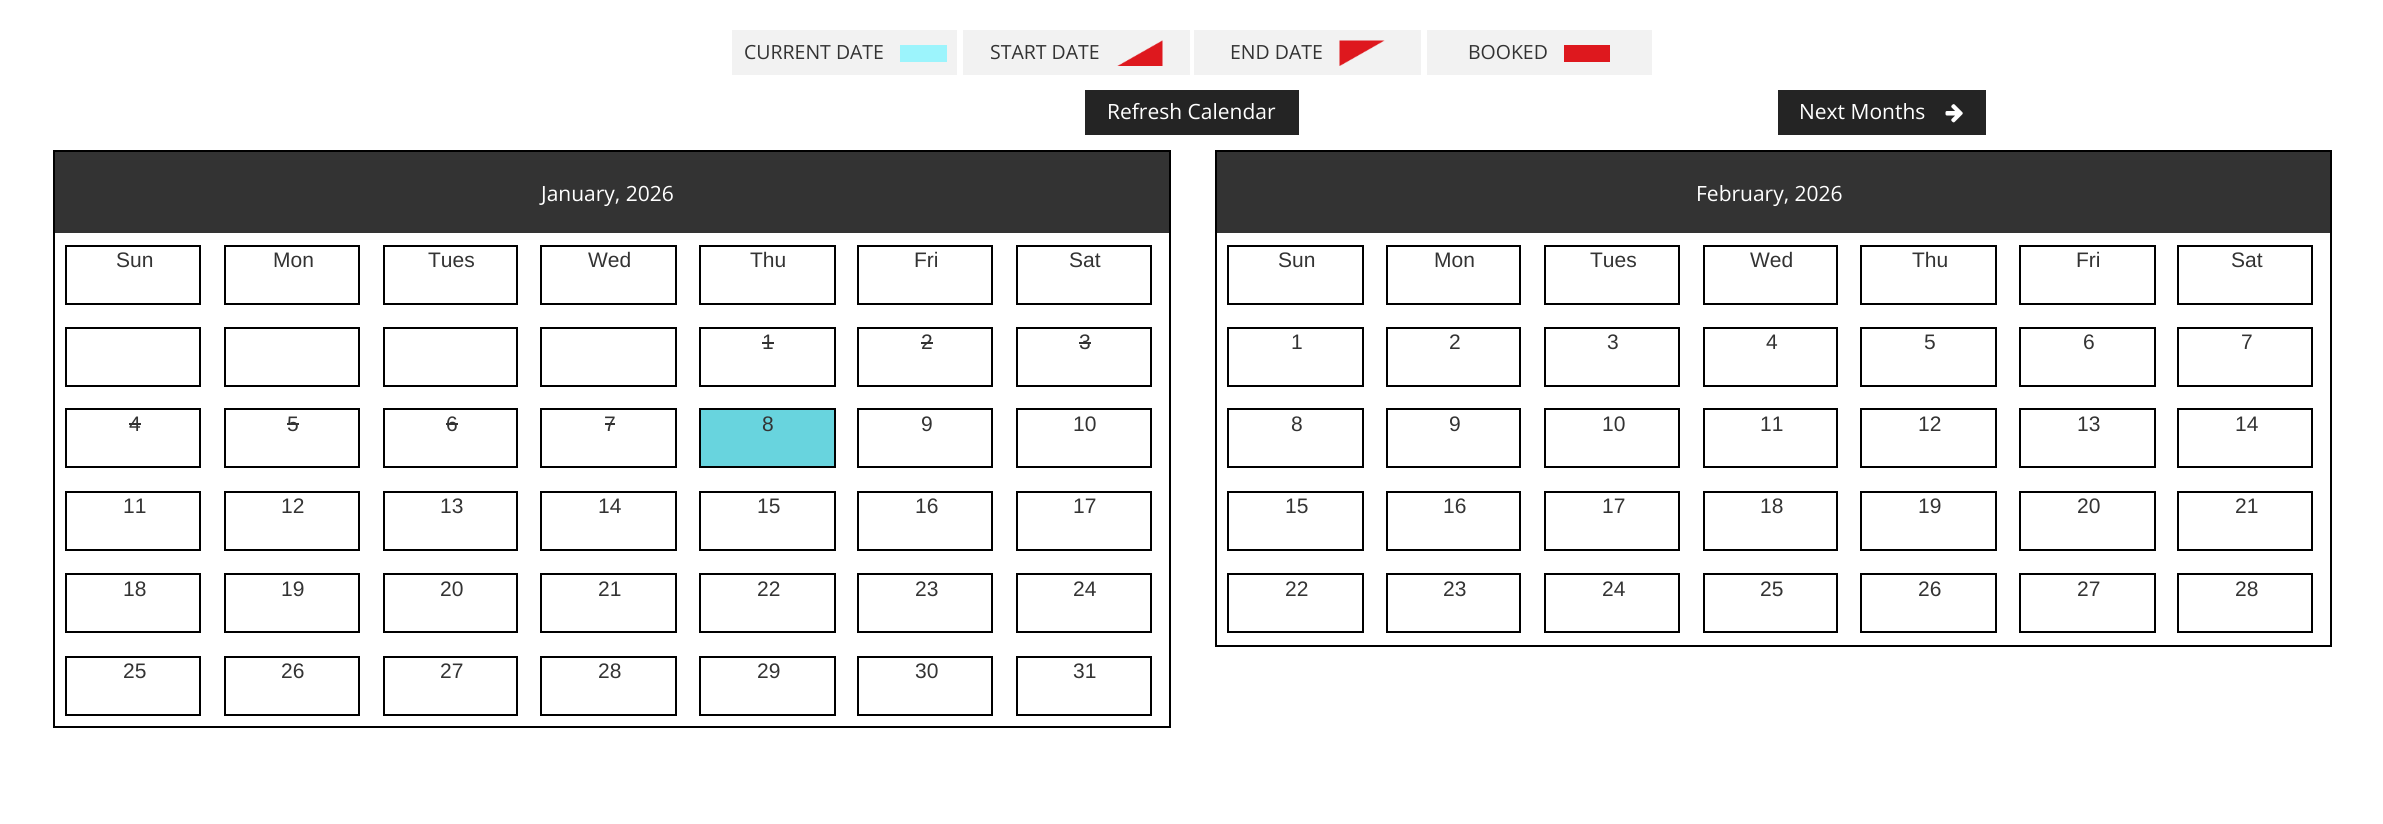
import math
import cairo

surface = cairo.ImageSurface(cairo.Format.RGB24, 2383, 824)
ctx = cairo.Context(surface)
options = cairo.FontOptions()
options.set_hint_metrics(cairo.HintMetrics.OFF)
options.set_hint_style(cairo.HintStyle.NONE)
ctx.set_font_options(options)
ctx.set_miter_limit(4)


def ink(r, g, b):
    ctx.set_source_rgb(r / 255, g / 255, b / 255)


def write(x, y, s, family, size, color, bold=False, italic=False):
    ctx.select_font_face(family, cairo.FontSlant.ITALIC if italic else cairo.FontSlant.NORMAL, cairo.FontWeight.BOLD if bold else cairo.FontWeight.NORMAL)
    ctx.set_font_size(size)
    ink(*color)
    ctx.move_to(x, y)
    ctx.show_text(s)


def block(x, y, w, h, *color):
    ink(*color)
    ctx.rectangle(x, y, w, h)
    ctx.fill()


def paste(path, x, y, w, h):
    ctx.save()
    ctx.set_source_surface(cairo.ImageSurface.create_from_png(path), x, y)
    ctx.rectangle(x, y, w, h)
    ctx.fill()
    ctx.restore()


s1 = dict(family="Open Sans", size=19.5, color=(51, 51, 51))
s2 = dict(family="Open Sans", size=21, color=(255, 255, 255))
s3 = dict(family="Liberation Sans", size=21, color=(51, 51, 51))

ink(255, 255, 255)
ctx.paint()
block(732, 30, 225, 45, 242, 242, 242)
write(744, 59, "CURRENT DATE", **s1)
block(900, 45, 47, 17, 156, 244, 252)
block(963, 30, 227, 45, 242, 242, 242)
write(990, 59, "START DATE", **s1)
paste("pic1.png", 1117, 40, 46, 26)
block(1194, 30, 227, 45, 242, 242, 242)
write(1230, 59, "END DATE", **s1)
paste("pic2.png", 1339, 40, 46, 26)
block(1427, 30, 225, 45, 242, 242, 242)
write(1468, 59, "BOOKED", **s1)
block(1564, 45, 46, 17, 222, 24, 30)
block(1085, 90, 214, 45, 36, 36, 36)
write(1107, 119, "Refresh Calendar", **s2)
block(1778, 90, 208, 45, 36, 36, 36)
write(1799, 119, "Next Months", **s2)
paste("pic3.png", 1945, 104, 18, 19)
block(53, 150, 1117, 2, 0, 0, 0)
block(1169, 150, 2, 578, 0, 0, 0)
block(53, 726, 1117, 2, 0, 0, 0)
block(53, 150, 2, 578, 0, 0, 0)
block(55, 152, 1114, 81, 51, 51, 51)
write(541, 201, "January, 2026", **s2)
ctx.rectangle(66, 246, 134, 58)
ink(0, 0, 0)
ctx.stroke()
write(116, 267, "Sun", **s3)
ctx.rectangle(225, 246, 134, 58)
ink(0, 0, 0)
ctx.stroke()
write(273, 267, "Mon", **s3)
ctx.rectangle(384, 246, 133, 58)
ink(0, 0, 0)
ctx.stroke()
write(428, 267, "Tues", **s3)
ctx.rectangle(541, 246, 135, 58)
ink(0, 0, 0)
ctx.stroke()
write(588, 267, "Wed", **s3)
ctx.rectangle(700, 246, 135, 58)
ink(0, 0, 0)
ctx.stroke()
write(750, 267, "Thu", **s3)
ctx.rectangle(858, 246, 134, 58)
ink(0, 0, 0)
ctx.stroke()
write(914, 267, "Fri", **s3)
ctx.rectangle(1017, 246, 134, 58)
ink(0, 0, 0)
ctx.stroke()
write(1069, 267, "Sat", **s3)
ctx.rectangle(66, 328, 134, 58)
ink(0, 0, 0)
ctx.stroke()
ctx.rectangle(225, 328, 134, 58)
ctx.stroke()
ctx.rectangle(384, 328, 133, 58)
ctx.stroke()
ctx.rectangle(541, 328, 135, 58)
ctx.stroke()
ctx.rectangle(700, 328, 135, 58)
ctx.stroke()
write(762, 349, "1", **s3)
block(762, 342, 12, 2, 51, 51, 51)
ctx.rectangle(858, 328, 134, 58)
ink(0, 0, 0)
ctx.stroke()
write(921, 349, "2", **s3)
block(921, 342, 12, 2, 51, 51, 51)
ctx.rectangle(1017, 328, 134, 58)
ink(0, 0, 0)
ctx.stroke()
write(1079, 349, "3", **s3)
block(1079, 342, 12, 2, 51, 51, 51)
ctx.rectangle(66, 409, 134, 58)
ink(0, 0, 0)
ctx.stroke()
write(129, 431, "4", **s3)
block(129, 423, 12, 2, 51, 51, 51)
ctx.rectangle(225, 409, 134, 58)
ink(0, 0, 0)
ctx.stroke()
write(287, 431, "5", **s3)
block(287, 423, 12, 2, 51, 51, 51)
ctx.rectangle(384, 409, 133, 58)
ink(0, 0, 0)
ctx.stroke()
write(446, 431, "6", **s3)
block(446, 423, 12, 2, 51, 51, 51)
ctx.rectangle(541, 409, 135, 58)
ink(0, 0, 0)
ctx.stroke()
write(604, 431, "7", **s3)
block(605, 423, 10, 2, 51, 51, 51)
ink(104, 212, 222)
ctx.rectangle(700, 409, 135, 58)
ctx.fill_preserve()
ink(0, 0, 0)
ctx.stroke()
write(762, 431, "8", **s3)
ctx.rectangle(858, 409, 134, 58)
ink(0, 0, 0)
ctx.stroke()
write(921, 431, "9", **s3)
ctx.rectangle(1017, 409, 134, 58)
ink(0, 0, 0)
ctx.stroke()
write(1073, 431, "10", **s3)
ctx.rectangle(66, 492, 134, 58)
ink(0, 0, 0)
ctx.stroke()
write(123, 513, "11", **s3)
ctx.rectangle(225, 492, 134, 58)
ink(0, 0, 0)
ctx.stroke()
write(281, 513, "12", **s3)
ctx.rectangle(384, 492, 133, 58)
ink(0, 0, 0)
ctx.stroke()
write(440, 513, "13", **s3)
ctx.rectangle(541, 492, 135, 58)
ink(0, 0, 0)
ctx.stroke()
write(598, 513, "14", **s3)
ctx.rectangle(700, 492, 135, 58)
ink(0, 0, 0)
ctx.stroke()
write(757, 513, "15", **s3)
ctx.rectangle(858, 492, 134, 58)
ink(0, 0, 0)
ctx.stroke()
write(915, 513, "16", **s3)
ctx.rectangle(1017, 492, 134, 58)
ink(0, 0, 0)
ctx.stroke()
write(1073, 513, "17", **s3)
ctx.rectangle(66, 574, 134, 58)
ink(0, 0, 0)
ctx.stroke()
write(123, 596, "18", **s3)
ctx.rectangle(225, 574, 134, 58)
ink(0, 0, 0)
ctx.stroke()
write(281, 596, "19", **s3)
ctx.rectangle(384, 574, 133, 58)
ink(0, 0, 0)
ctx.stroke()
write(440, 596, "20", **s3)
ctx.rectangle(541, 574, 135, 58)
ink(0, 0, 0)
ctx.stroke()
write(598, 596, "21", **s3)
ctx.rectangle(700, 574, 135, 58)
ink(0, 0, 0)
ctx.stroke()
write(757, 596, "22", **s3)
ctx.rectangle(858, 574, 134, 58)
ink(0, 0, 0)
ctx.stroke()
write(915, 596, "23", **s3)
ctx.rectangle(1017, 574, 134, 58)
ink(0, 0, 0)
ctx.stroke()
write(1073, 596, "24", **s3)
ctx.rectangle(66, 657, 134, 58)
ink(0, 0, 0)
ctx.stroke()
write(123, 678, "25", **s3)
ctx.rectangle(225, 657, 134, 58)
ink(0, 0, 0)
ctx.stroke()
write(281, 678, "26", **s3)
ctx.rectangle(384, 657, 133, 58)
ink(0, 0, 0)
ctx.stroke()
write(440, 678, "27", **s3)
ctx.rectangle(541, 657, 135, 58)
ink(0, 0, 0)
ctx.stroke()
write(598, 678, "28", **s3)
ctx.rectangle(700, 657, 135, 58)
ink(0, 0, 0)
ctx.stroke()
write(757, 678, "29", **s3)
ctx.rectangle(858, 657, 134, 58)
ink(0, 0, 0)
ctx.stroke()
write(915, 678, "30", **s3)
ctx.rectangle(1017, 657, 134, 58)
ink(0, 0, 0)
ctx.stroke()
write(1073, 678, "31", **s3)
block(1215, 150, 1116, 2, 0, 0, 0)
block(2330, 150, 2, 497, 0, 0, 0)
block(1215, 645, 1116, 2, 0, 0, 0)
block(1215, 150, 2, 497, 0, 0, 0)
block(1217, 152, 1113, 81, 51, 51, 51)
write(1696, 201, "February, 2026", **s2)
ctx.rectangle(1228, 246, 135, 58)
ink(0, 0, 0)
ctx.stroke()
write(1278, 267, "Sun", **s3)
ctx.rectangle(1387, 246, 133, 58)
ink(0, 0, 0)
ctx.stroke()
write(1434, 267, "Mon", **s3)
ctx.rectangle(1545, 246, 134, 58)
ink(0, 0, 0)
ctx.stroke()
write(1590, 267, "Tues", **s3)
ctx.rectangle(1704, 246, 133, 58)
ink(0, 0, 0)
ctx.stroke()
write(1750, 267, "Wed", **s3)
ctx.rectangle(1861, 246, 135, 58)
ink(0, 0, 0)
ctx.stroke()
write(1912, 267, "Thu", **s3)
ctx.rectangle(2020, 246, 135, 58)
ink(0, 0, 0)
ctx.stroke()
write(2076, 267, "Fri", **s3)
ctx.rectangle(2178, 246, 134, 58)
ink(0, 0, 0)
ctx.stroke()
write(2231, 267, "Sat", **s3)
ctx.rectangle(1228, 328, 135, 58)
ink(0, 0, 0)
ctx.stroke()
write(1291, 349, "1", **s3)
ctx.rectangle(1387, 328, 133, 58)
ink(0, 0, 0)
ctx.stroke()
write(1449, 349, "2", **s3)
ctx.rectangle(1545, 328, 134, 58)
ink(0, 0, 0)
ctx.stroke()
write(1607, 349, "3", **s3)
ctx.rectangle(1704, 328, 133, 58)
ink(0, 0, 0)
ctx.stroke()
write(1766, 349, "4", **s3)
ctx.rectangle(1861, 328, 135, 58)
ink(0, 0, 0)
ctx.stroke()
write(1924, 349, "5", **s3)
ctx.rectangle(2020, 328, 135, 58)
ink(0, 0, 0)
ctx.stroke()
write(2083, 349, "6", **s3)
ctx.rectangle(2178, 328, 134, 58)
ink(0, 0, 0)
ctx.stroke()
write(2241, 349, "7", **s3)
ctx.rectangle(1228, 409, 135, 58)
ink(0, 0, 0)
ctx.stroke()
write(1291, 431, "8", **s3)
ctx.rectangle(1387, 409, 133, 58)
ink(0, 0, 0)
ctx.stroke()
write(1449, 431, "9", **s3)
ctx.rectangle(1545, 409, 134, 58)
ink(0, 0, 0)
ctx.stroke()
write(1602, 431, "10", **s3)
ctx.rectangle(1704, 409, 133, 58)
ink(0, 0, 0)
ctx.stroke()
write(1760, 431, "11", **s3)
ctx.rectangle(1861, 409, 135, 58)
ink(0, 0, 0)
ctx.stroke()
write(1918, 431, "12", **s3)
ctx.rectangle(2020, 409, 135, 58)
ink(0, 0, 0)
ctx.stroke()
write(2077, 431, "13", **s3)
ctx.rectangle(2178, 409, 134, 58)
ink(0, 0, 0)
ctx.stroke()
write(2235, 431, "14", **s3)
ctx.rectangle(1228, 492, 135, 58)
ink(0, 0, 0)
ctx.stroke()
write(1285, 513, "15", **s3)
ctx.rectangle(1387, 492, 133, 58)
ink(0, 0, 0)
ctx.stroke()
write(1443, 513, "16", **s3)
ctx.rectangle(1545, 492, 134, 58)
ink(0, 0, 0)
ctx.stroke()
write(1602, 513, "17", **s3)
ctx.rectangle(1704, 492, 133, 58)
ink(0, 0, 0)
ctx.stroke()
write(1760, 513, "18", **s3)
ctx.rectangle(1861, 492, 135, 58)
ink(0, 0, 0)
ctx.stroke()
write(1918, 513, "19", **s3)
ctx.rectangle(2020, 492, 135, 58)
ink(0, 0, 0)
ctx.stroke()
write(2077, 513, "20", **s3)
ctx.rectangle(2178, 492, 134, 58)
ink(0, 0, 0)
ctx.stroke()
write(2235, 513, "21", **s3)
ctx.rectangle(1228, 574, 135, 58)
ink(0, 0, 0)
ctx.stroke()
write(1285, 596, "22", **s3)
ctx.rectangle(1387, 574, 133, 58)
ink(0, 0, 0)
ctx.stroke()
write(1443, 596, "23", **s3)
ctx.rectangle(1545, 574, 134, 58)
ink(0, 0, 0)
ctx.stroke()
write(1602, 596, "24", **s3)
ctx.rectangle(1704, 574, 133, 58)
ink(0, 0, 0)
ctx.stroke()
write(1760, 596, "25", **s3)
ctx.rectangle(1861, 574, 135, 58)
ink(0, 0, 0)
ctx.stroke()
write(1918, 596, "26", **s3)
ctx.rectangle(2020, 574, 135, 58)
ink(0, 0, 0)
ctx.stroke()
write(2077, 596, "27", **s3)
ctx.rectangle(2178, 574, 134, 58)
ink(0, 0, 0)
ctx.stroke()
write(2235, 596, "28", **s3)
surface.write_to_png("screenshot.png")
